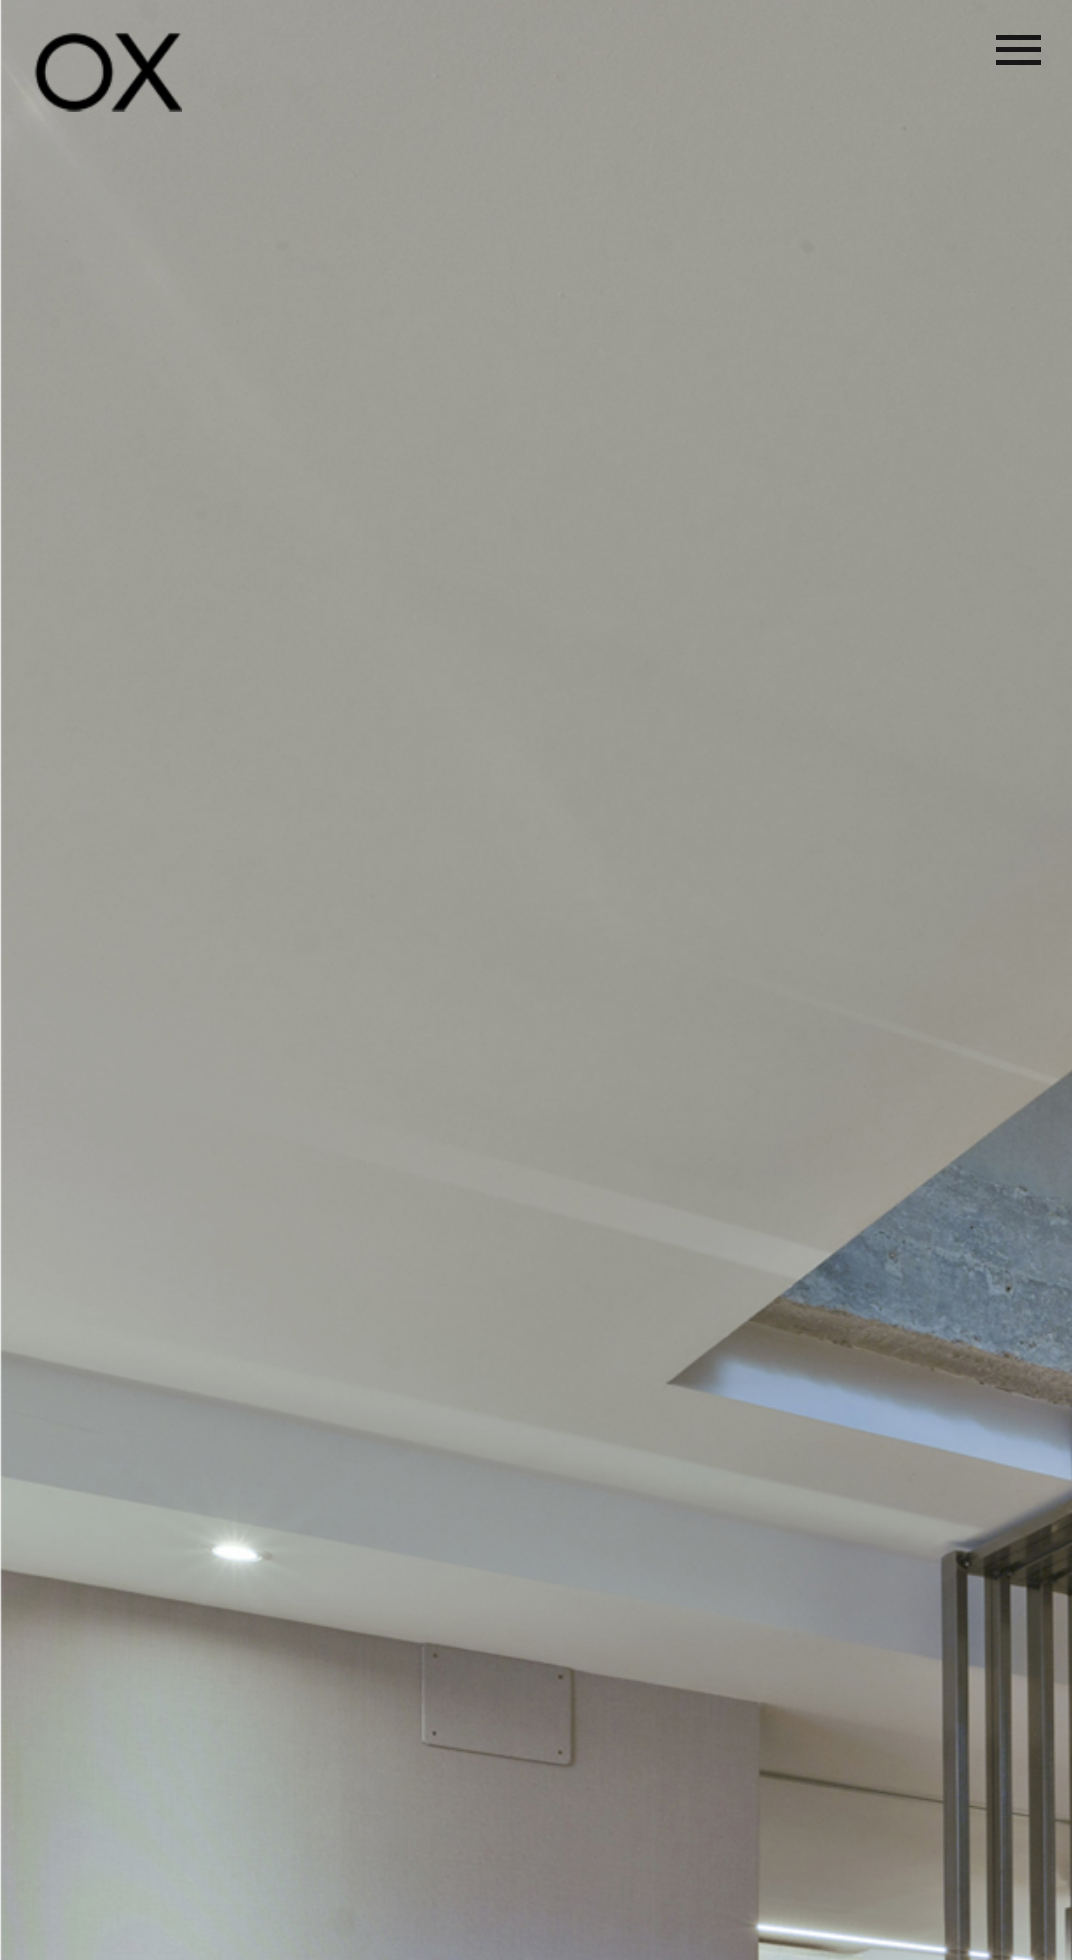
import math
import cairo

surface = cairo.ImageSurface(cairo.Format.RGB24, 1072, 1960)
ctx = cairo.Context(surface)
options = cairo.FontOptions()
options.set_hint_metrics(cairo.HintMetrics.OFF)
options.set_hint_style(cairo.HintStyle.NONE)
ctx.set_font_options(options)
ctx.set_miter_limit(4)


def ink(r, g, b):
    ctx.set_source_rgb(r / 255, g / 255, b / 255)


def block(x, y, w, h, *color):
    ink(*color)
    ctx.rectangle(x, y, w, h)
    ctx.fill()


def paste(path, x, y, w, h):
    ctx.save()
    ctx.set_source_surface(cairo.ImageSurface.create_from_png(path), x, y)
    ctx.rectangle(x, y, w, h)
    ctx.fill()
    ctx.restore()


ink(255, 255, 255)
ctx.paint()
paste("pic1.png", 0, 0, 1072, 1960)
paste("pic2.png", 34, 32, 148, 80)
block(996, 35, 45, 5, 23, 22, 23)
block(996, 47, 45, 5, 23, 22, 23)
block(996, 60, 45, 5, 23, 22, 23)
surface.write_to_png("screenshot.png")
